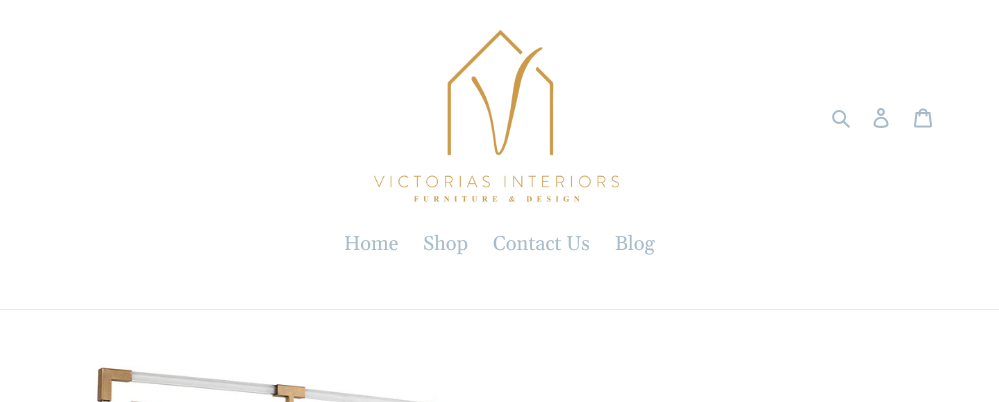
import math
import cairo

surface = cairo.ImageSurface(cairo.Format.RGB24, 999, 402)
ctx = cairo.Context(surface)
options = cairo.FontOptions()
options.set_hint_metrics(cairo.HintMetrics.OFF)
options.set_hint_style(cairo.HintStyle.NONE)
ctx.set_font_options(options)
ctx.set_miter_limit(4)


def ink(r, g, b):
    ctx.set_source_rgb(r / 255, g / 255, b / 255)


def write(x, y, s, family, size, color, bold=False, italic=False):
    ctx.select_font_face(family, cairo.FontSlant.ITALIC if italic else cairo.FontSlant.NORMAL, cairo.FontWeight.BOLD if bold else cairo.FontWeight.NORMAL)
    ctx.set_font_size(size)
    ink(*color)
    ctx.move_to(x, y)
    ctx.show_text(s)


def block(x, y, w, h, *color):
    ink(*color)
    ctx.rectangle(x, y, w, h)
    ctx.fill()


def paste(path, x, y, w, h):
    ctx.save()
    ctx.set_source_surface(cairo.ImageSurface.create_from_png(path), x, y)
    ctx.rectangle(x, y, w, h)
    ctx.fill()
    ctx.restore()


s1 = dict(family="Gelasio", size=20, color=(167, 188, 202))

ink(255, 255, 255)
ctx.paint()
paste("pic1.png", 374, 30, 245, 172)
paste("pic2.png", 832, 110, 18, 18)
paste("pic3.png", 873, 108, 16, 20)
paste("pic4.png", 914, 108, 18, 20)
block(0, 309, 999, 1, 235, 235, 235)
write(344, 250, "Home", **s1)
write(423, 250, "Shop", **s1)
write(493, 250, "Contact Us", **s1)
write(615, 250, "Blog", **s1)
paste("pic5.png", 93, 365, 344, 37)
surface.write_to_png("screenshot.png")
